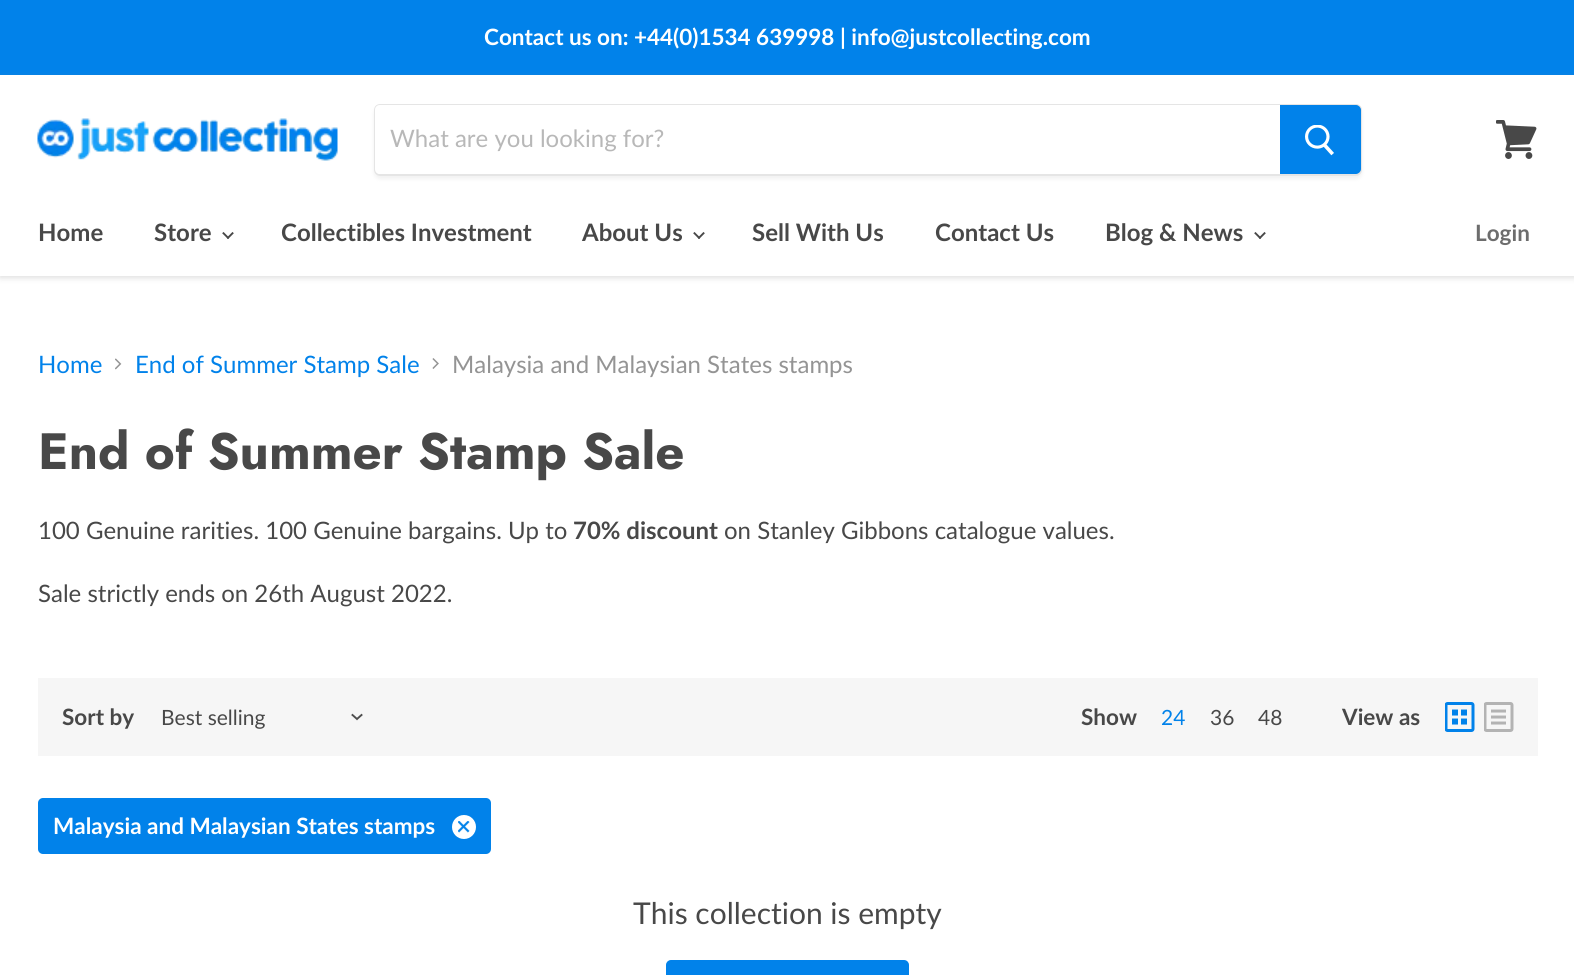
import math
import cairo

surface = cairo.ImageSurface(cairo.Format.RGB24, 1574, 975)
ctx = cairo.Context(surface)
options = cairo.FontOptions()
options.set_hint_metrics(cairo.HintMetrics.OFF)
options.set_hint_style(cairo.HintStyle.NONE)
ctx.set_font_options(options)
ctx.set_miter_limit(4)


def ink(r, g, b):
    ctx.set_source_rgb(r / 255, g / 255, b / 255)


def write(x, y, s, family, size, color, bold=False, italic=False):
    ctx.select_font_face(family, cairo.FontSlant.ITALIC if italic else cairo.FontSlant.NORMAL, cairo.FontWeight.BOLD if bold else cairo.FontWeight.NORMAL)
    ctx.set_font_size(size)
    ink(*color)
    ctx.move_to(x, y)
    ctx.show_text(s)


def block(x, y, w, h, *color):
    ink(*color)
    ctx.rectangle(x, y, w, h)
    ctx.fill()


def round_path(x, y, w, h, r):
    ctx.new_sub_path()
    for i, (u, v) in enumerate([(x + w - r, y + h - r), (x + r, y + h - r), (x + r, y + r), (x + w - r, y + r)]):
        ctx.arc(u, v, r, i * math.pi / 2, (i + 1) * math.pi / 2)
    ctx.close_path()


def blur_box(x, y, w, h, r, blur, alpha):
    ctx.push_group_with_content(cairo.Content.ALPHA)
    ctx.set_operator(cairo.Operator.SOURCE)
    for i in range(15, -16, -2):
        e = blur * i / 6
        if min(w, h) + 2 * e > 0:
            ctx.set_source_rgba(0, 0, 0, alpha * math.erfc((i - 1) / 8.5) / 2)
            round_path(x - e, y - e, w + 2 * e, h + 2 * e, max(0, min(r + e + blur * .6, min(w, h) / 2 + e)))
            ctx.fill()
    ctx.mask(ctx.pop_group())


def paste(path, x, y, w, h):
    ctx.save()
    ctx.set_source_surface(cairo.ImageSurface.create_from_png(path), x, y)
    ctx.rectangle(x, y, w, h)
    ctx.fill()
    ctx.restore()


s1 = dict(family="Lato", size=22.5, color=(255, 255, 255), bold=True)
s2 = dict(family="Lato", size=24, color=(184, 184, 184))
s3 = dict(family="Lato", size=24, color=(72, 72, 72), bold=True)
s4 = dict(family="Lato", size=22.5, color=(109, 109, 109), bold=True)
s5 = dict(family="Lato", size=24, color=(1, 130, 234))
s6 = dict(family="Lato", size=24, color=(148, 148, 148))
s7 = dict(family="Jost", size=51, color=(72, 72, 72), bold=True)
s8 = dict(family="Lato", size=24, color=(72, 72, 72))
s9 = dict(family="Lato", size=22.5, color=(72, 72, 72), bold=True)
s10 = dict(family="Lato", size=21, color=(72, 72, 72))
s11 = dict(family="Lato", size=21, color=(1, 130, 234))
s12 = dict(family="Lato", size=30, color=(72, 72, 72))

ink(255, 255, 255)
ctx.paint()
block(0, 0, 1574, 75, 1, 130, 234)
write(484, 45, "Contact us on: +44(0)1534 639998 | info@justcollecting.com", **s1)
ctx.save()
ctx.set_fill_rule(cairo.FillRule.EVEN_ODD)
ctx.new_path()
ctx.move_to(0, 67)
ctx.line_to(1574, 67)
ctx.line_to(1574, 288)
ctx.line_to(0, 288)
ctx.close_path()
ctx.move_to(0, 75)
ctx.line_to(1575, 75)
ctx.line_to(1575, 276)
ctx.line_to(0, 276)
ctx.close_path()
ctx.clip()
ink(128, 128, 128)
blur_box(0, 77, 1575, 201, 0, 3, 0.25)
ctx.restore()
paste("pic1.png", 37, 118, 301, 43)
ctx.save()
ctx.set_fill_rule(cairo.FillRule.EVEN_ODD)
ctx.new_path()
ctx.move_to(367, 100)
ctx.line_to(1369, 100)
ctx.line_to(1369, 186)
ctx.line_to(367, 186)
ctx.close_path()
ctx.move_to(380, 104)
ctx.line_to(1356, 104)
ctx.curve_to(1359.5, 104, 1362, 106.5, 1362, 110)
ctx.line_to(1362, 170)
ctx.curve_to(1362, 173.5, 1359.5, 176, 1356, 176)
ctx.line_to(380, 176)
ctx.curve_to(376.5, 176, 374, 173.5, 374, 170)
ctx.line_to(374, 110)
ctx.curve_to(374, 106.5, 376.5, 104, 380, 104)
ctx.close_path()
ctx.clip()
ink(128, 128, 128)
blur_box(374, 107, 988, 72, 6, 2, 0.11)
ctx.restore()
round_path(375, 105, 986, 70, 5)
ctx.set_source_rgba(0.502, 0.502, 0.502, 0.2)
ctx.stroke()
ink(255, 255, 255)
ctx.new_path()
ctx.move_to(380, 105)
ctx.line_to(1280, 105)
ctx.line_to(1280, 174)
ctx.line_to(380, 174)
ctx.curve_to(377, 174, 375, 172, 375, 169)
ctx.line_to(375, 110)
ctx.curve_to(375, 107, 377, 105, 380, 105)
ctx.close_path()
ctx.fill()
write(390, 147, "What are you looking for?", **s2)
ink(1, 130, 234)
ctx.new_path()
ctx.move_to(1281, 106)
ctx.line_to(1356, 106)
ctx.curve_to(1358, 106, 1360, 108, 1360, 110)
ctx.line_to(1360, 169)
ctx.curve_to(1360, 171, 1358, 173, 1356, 173)
ctx.line_to(1281, 173)
ctx.close_path()
ctx.fill_preserve()
ctx.stroke()
paste("pic2.png", 1305, 125, 29, 31)
paste("pic3.png", 1496, 120, 41, 39)
write(38, 241, "Home", **s3)
write(154, 241, "Store", **s3)
paste("pic4.png", 222, 232, 12, 7)
write(281, 241, "Collectibles Investment", **s3)
write(582, 241, "About Us", **s3)
paste("pic4.png", 693, 232, 12, 7)
write(752, 241, "Sell With Us", **s3)
write(935, 241, "Contact Us", **s3)
write(1105, 241, "Blog & News", **s3)
paste("pic4.png", 1254, 232, 12, 7)
write(1475, 241, "Login", **s4)
write(38, 373, "Home", **s5)
paste("pic5.png", 115, 358, 7, 12)
write(135, 373, "End of Summer Stamp Sale", **s5)
paste("pic6.png", 432, 358, 7, 11)
write(452, 373, "Malaysia and Malaysian States stamps", **s6)
write(38, 469, "End of Summer Stamp Sale", **s7)
write(38, 539, "100 Genuine rarities. 100 Genuine bargains. Up to", **s8)
write(573, 539, "70% discount", **s3)
write(724, 539, "on Stanley Gibbons catalogue values.", **s8)
write(38, 602, "Sale strictly ends on 26th August 2022.", **s8)
block(38, 678, 1500, 78, 246, 246, 246)
write(62, 725, "Sort by", **s9)
write(161, 725, "Best selling", **s10)
ctx.new_path()
ctx.move_to(357, 719)
ctx.line_to(361.5, 715)
ctx.move_to(357, 719)
ctx.line_to(352.5, 715)
ink(77, 77, 77)
ctx.set_line_width(1.9)
ctx.set_line_cap(cairo.LineCap.SQUARE)
ctx.stroke()
write(1081, 725, "Show", **s9)
write(1161, 725, "24", **s11)
write(1210, 725, "36", **s10)
write(1258, 725, "48", **s10)
write(1342, 725, "View as", **s9)
paste("pic7.png", 1445, 702, 30, 30)
paste("pic8.png", 1484, 702, 30, 30)
ink(1, 130, 234)
round_path(38, 798, 453, 56, 5)
ctx.fill()
write(53, 834, "Malaysia and Malaysian States stamps", **s1)
ctx.new_path()
ctx.arc(464, 827, 12, 0, 2 * math.pi)
ctx.fill()
paste("pic9.png", 458, 821, 12, 12)
write(633, 924, "This collection is empty", **s12)
ink(1, 130, 234)
round_path(667, 961, 241, 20, 4)
ctx.fill_preserve()
ctx.set_line_width(2)
ctx.set_line_cap(cairo.LineCap.BUTT)
ctx.stroke()
surface.write_to_png("screenshot.png")
